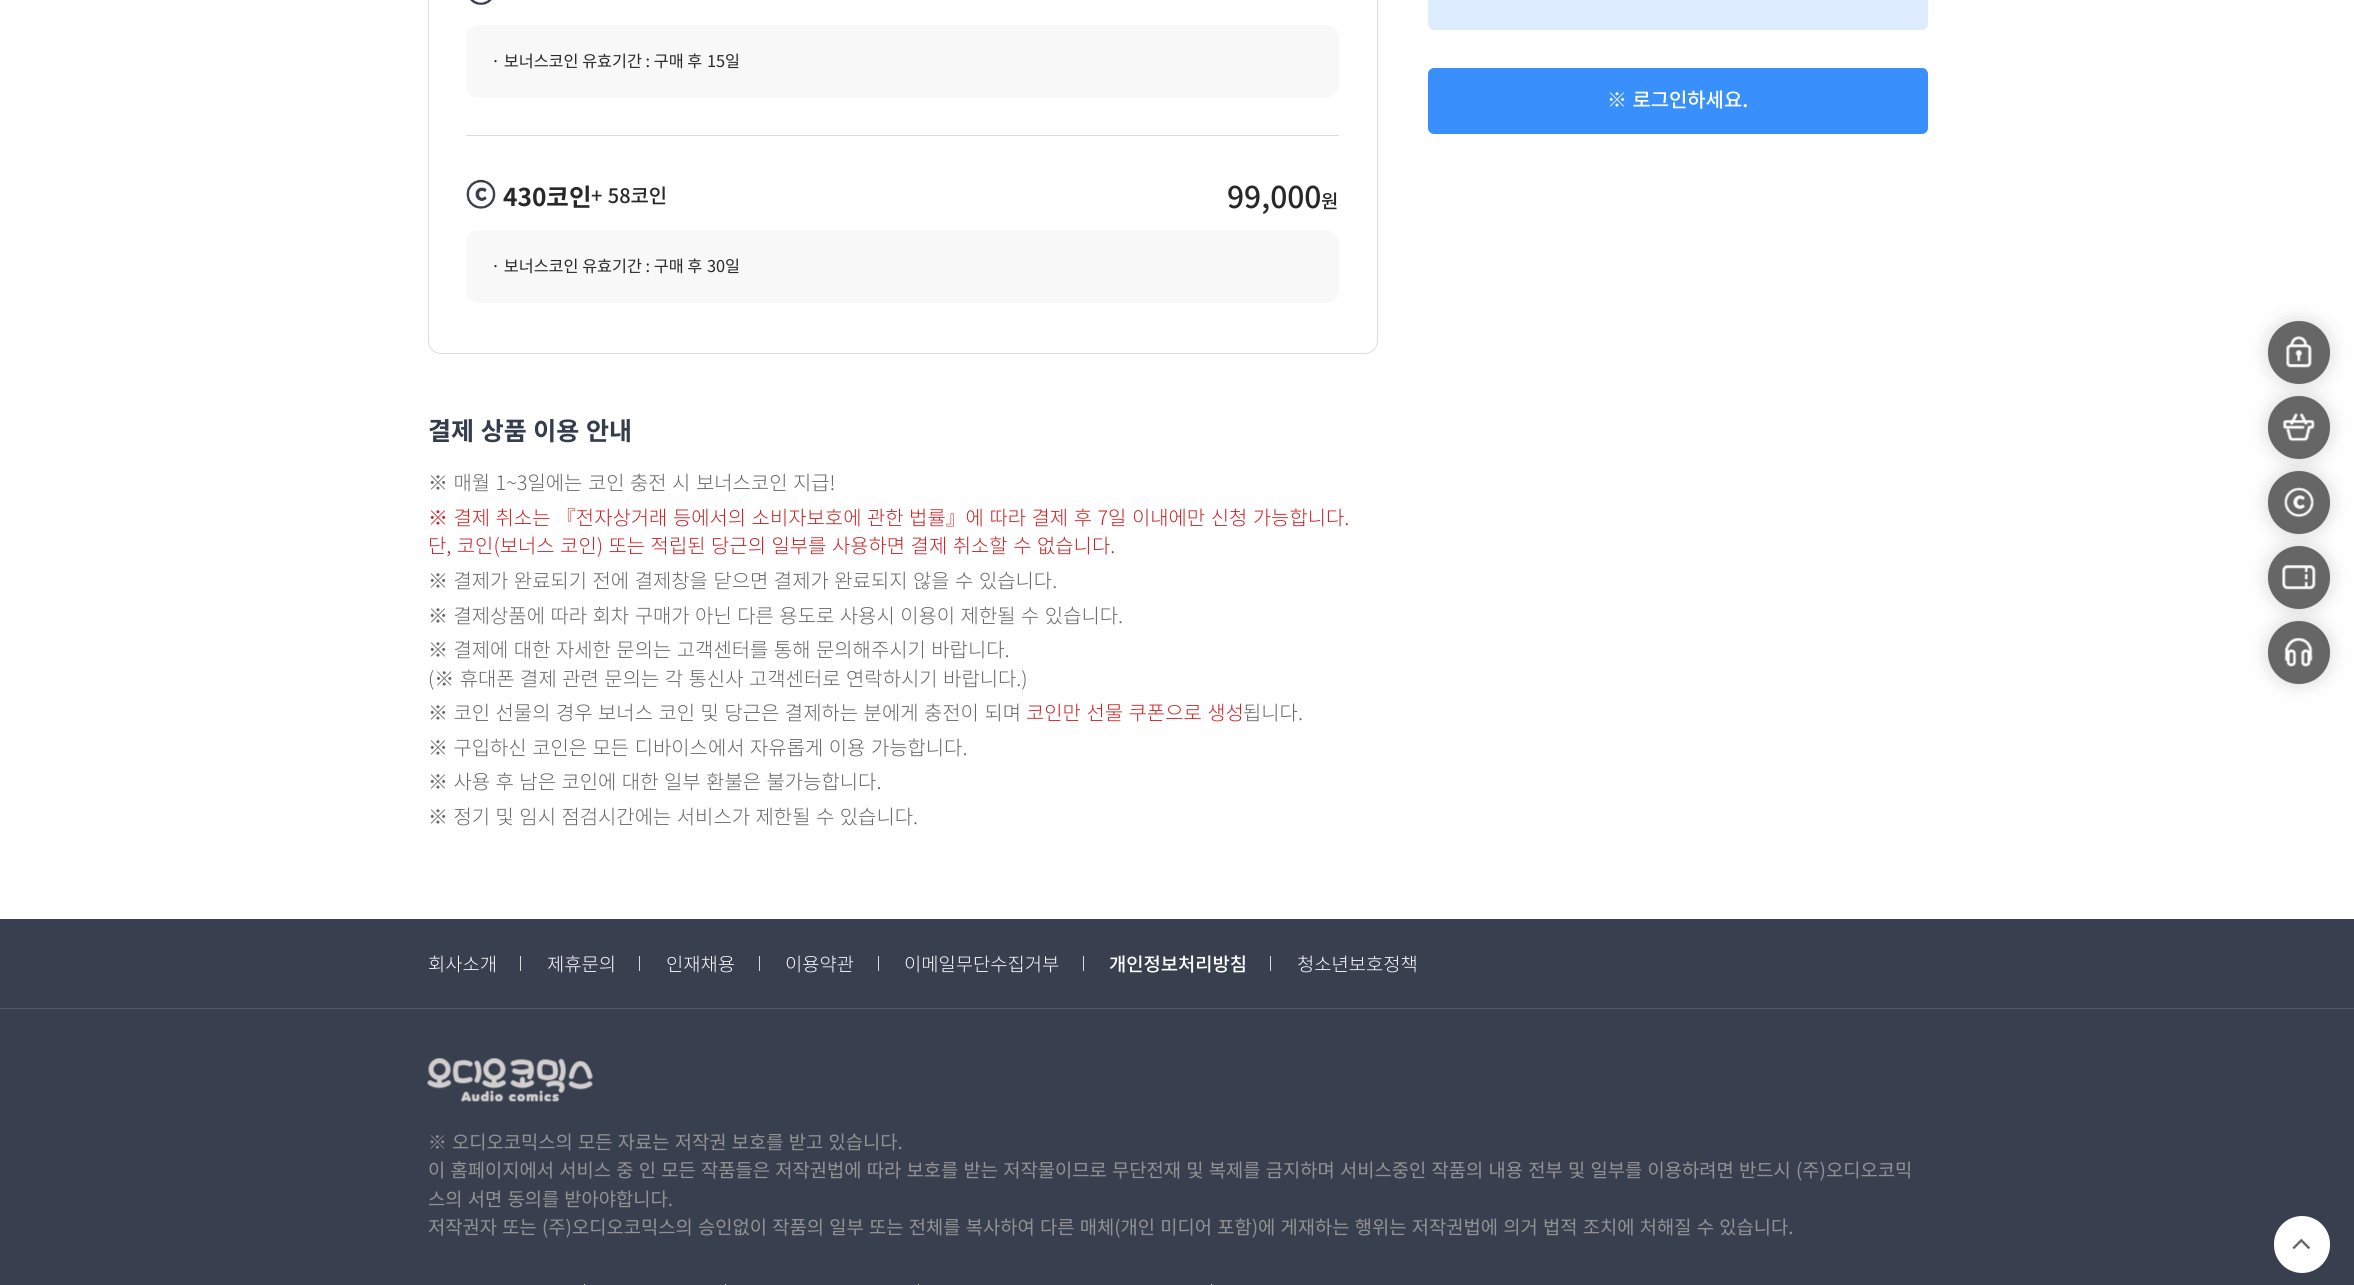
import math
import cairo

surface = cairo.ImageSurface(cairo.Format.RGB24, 2354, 1285)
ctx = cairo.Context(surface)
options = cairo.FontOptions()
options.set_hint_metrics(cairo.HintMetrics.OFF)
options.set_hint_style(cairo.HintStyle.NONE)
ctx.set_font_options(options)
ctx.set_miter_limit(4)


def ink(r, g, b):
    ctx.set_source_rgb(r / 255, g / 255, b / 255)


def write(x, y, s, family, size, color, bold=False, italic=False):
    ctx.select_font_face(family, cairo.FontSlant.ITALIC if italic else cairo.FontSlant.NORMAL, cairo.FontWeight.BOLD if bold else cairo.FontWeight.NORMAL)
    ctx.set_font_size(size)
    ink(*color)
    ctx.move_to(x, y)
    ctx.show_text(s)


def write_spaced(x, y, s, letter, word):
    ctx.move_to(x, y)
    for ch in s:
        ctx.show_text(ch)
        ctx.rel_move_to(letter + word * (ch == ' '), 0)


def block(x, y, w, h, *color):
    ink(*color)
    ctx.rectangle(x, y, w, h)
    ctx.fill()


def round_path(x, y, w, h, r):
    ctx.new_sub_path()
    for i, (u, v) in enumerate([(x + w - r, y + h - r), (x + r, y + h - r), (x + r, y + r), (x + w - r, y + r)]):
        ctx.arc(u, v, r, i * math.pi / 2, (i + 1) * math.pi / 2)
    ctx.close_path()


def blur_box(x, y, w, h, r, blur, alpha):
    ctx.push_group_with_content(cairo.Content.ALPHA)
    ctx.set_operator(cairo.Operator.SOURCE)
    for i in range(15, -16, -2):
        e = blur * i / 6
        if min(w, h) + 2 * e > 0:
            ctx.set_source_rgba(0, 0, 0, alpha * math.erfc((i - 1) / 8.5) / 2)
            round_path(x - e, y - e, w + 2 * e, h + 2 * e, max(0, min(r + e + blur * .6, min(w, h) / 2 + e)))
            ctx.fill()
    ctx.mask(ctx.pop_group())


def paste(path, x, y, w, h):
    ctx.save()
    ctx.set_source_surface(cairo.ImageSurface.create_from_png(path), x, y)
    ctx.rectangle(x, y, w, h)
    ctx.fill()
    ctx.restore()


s1 = dict(family="Noto Sans KR", size=16.25, color=(40, 40, 40))
s2 = dict(family="Noto Sans KR", size=24.5, color=(40, 40, 40), bold=True)
s3 = dict(family="Noto Sans KR Medium", size=30, color=(40, 40, 40))
s4 = dict(family="Noto Sans KR Medium", size=18.75, color=(40, 40, 40))
s5 = dict(family="Noto Sans KR Light", size=19.9, color=(102, 102, 102))
s6 = dict(family="Noto Sans KR Light", size=18.75, color=(255, 255, 255))
s7 = dict(family="Noto Sans KR Medium", size=18.75, color=(255, 255, 255))

ink(255, 255, 255)
ctx.paint()
round_path(428.5, -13.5, 949, 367, 12.5)
ink(221, 221, 221)
ctx.set_line_width(1)
ctx.stroke()
block(466, 135, 873, 1, 221, 221, 221)
paste("pic1.png", 470, 0, 22, 5)
ink(248, 248, 248)
round_path(466, 25, 873, 73, 13)
ctx.fill()
write(491, 67, "· 보너스코인 유효기간 : 구매 후", **s1)
write(707, 67, "15일", **s1)
paste("pic2.png", 466, 179, 30, 30)
write(503, 206, "430코인", **s2)
ctx.select_font_face("Noto Sans KR Medium")
ctx.set_font_size(19.9)
write_spaced(591, 203, "+ 58코인", 0, 1)
write(1227, 208, "99,000", **s3)
write(1321, 208, "원", **s4)
ink(248, 248, 248)
round_path(466, 230, 873, 73, 13)
ctx.fill()
write(491, 272, "· 보너스코인 유효기간 : 구매 후", **s1)
write(707, 272, "30일", **s1)
ctx.select_font_face("Noto Sans KR", cairo.FontSlant.NORMAL, cairo.FontWeight.BOLD)
ctx.set_font_size(25)
ink(51, 61, 75)
write_spaced(428, 440, "결제 상품 이용 안내", 0, 1)
ctx.select_font_face("Noto Sans KR Light")
ctx.set_font_size(19.9)
ink(102, 102, 102)
write_spaced(428, 490, "※ 매월 1~3일에는 코인 충전 시 보너스코인 지급!", 0, 1.1)
ink(201, 35, 37)
write_spaced(428, 525, "※ 결제 취소는 『전자상거래 등에서의 소비자보호에 관한 법률』에 따라 결제 후 7일 이내에만 신청 가능합니다.", 0, 1.1)
write_spaced(428, 553, "단, 코인(보너스 코인) 또는 적립된 당근의 일부를 사용하면 결제 취소할 수 없습니다.", 0, 1.1)
ink(102, 102, 102)
write_spaced(428, 588, "※ 결제가 완료되기 전에 결제창을 닫으면 결제가 완료되지 않을 수 있습니다.", 0, 1.1)
write_spaced(428, 623, "※ 결제상품에 따라 회차 구매가 아닌 다른 용도로 사용시 이용이 제한될 수 있습니다.", 0, 1.1)
write_spaced(428, 657, "※ 결제에 대한 자세한 문의는 고객센터를 통해 문의해주시기 바랍니다.", 0, 1.1)
write_spaced(428, 686, "(※ 휴대폰 결제 관련 문의는 각 통신사 고객센터로 연락하시기 바랍니다.)", 0, 1.1)
write_spaced(428, 720, "※ 코인 선물의 경우 보너스 코인 및 당근은 결제하는 분에게 충전이 되며", 0, 1.1)
ink(201, 35, 37)
write_spaced(1026, 720, "코인만 선물 쿠폰으로 생성", 0, 1.1)
write(1243, 720, "됩니다.", **s5)
write_spaced(428, 755, "※ 구입하신 코인은 모든 디바이스에서 자유롭게 이용 가능합니다.", 0, 1.1)
write_spaced(428, 789, "※ 사용 후 남은 코인에 대한 일부 환불은 불가능합니다.", 0, 1.1)
write_spaced(428, 824, "※ 정기 및 임시 점검시간에는 서비스가 제한될 수 있습니다.", 0, 1.1)
ink(221, 236, 255)
round_path(1428, -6, 500, 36, 6)
ctx.fill()
ink(57, 144, 252)
round_path(1428, 68, 500, 66, 6)
ctx.fill()
ctx.select_font_face("Noto Sans KR Medium")
ink(255, 255, 255)
write_spaced(1607, 107, "※ 로그인하세요.", 0, 1)
block(0, 919, 2354, 366, 56, 63, 79)
block(0, 1008, 2354, 1, 82, 91, 111)
write(428, 971, "회사소개", **s6)
block(520, 956, 1, 15, 219, 219, 219)
write(547, 971, "제휴문의", **s6)
block(639, 956, 1, 15, 219, 219, 219)
write(666, 971, "인재채용", **s6)
block(759, 956, 1, 15, 219, 219, 219)
write(785, 971, "이용약관", **s6)
block(878, 956, 1, 15, 219, 219, 219)
write(904, 971, "이메일무단수집거부", **s6)
block(1083, 956, 1, 15, 219, 219, 219)
write(1109, 971, "개인정보처리방침", **s7)
block(1270, 956, 1, 15, 219, 219, 219)
write(1297, 971, "청소년보호정책", **s6)
paste("pic3.png", 427, 1058, 166, 44)
ctx.select_font_face("Noto Sans KR")
ink(146, 146, 146)
write_spaced(428, 1149, "※ 오디오코믹스의 모든 자료는 저작권 보호를 받고 있습니다.", 0, 1.05)
write_spaced(428, 1177, "이 홈페이지에서 서비스 중 인 모든 작품들은 저작권법에 따라 보호를 받는 저작물이므로 무단전재 및 복제를 금지하며 서비스중인 작품의 내용 전부 및 일부를 이용하려면 반드시 (주)오디오코믹", 0, 1.05)
write_spaced(428, 1206, "스의 서면 동의를 받아야합니다.", 0, 1)
write_spaced(428, 1234, "저작권자 또는 (주)오디오코믹스의 승인없이 작품의 일부 또는 전체를 복사하여 다른 매체(개인 미디어 포함)에 게재하는 행위는 저작권법에 의거 법적 조치에 처해질 수 있습니다.", 0, 1.05)
block(584, 1284, 1, 1, 193, 193, 193)
block(725, 1284, 1, 1, 193, 193, 193)
block(918, 1284, 1, 1, 193, 193, 193)
block(1211, 1284, 1, 1, 193, 193, 193)
ink(50, 50, 50)
blur_box(2268, 321, 62, 63, 31, 9.5, 0.2)
ink(102, 102, 102)
round_path(2268, 321, 62, 63, 31)
ctx.fill()
paste("pic4.png", 2286, 336, 26, 32)
ink(50, 50, 50)
blur_box(2268, 396, 62, 63, 31, 9.5, 0.2)
ink(102, 102, 102)
round_path(2268, 396, 62, 63, 31)
ctx.fill()
paste("pic5.png", 2282, 413, 33, 29)
ink(50, 50, 50)
blur_box(2268, 471, 62, 63, 31, 9.5, 0.2)
ink(102, 102, 102)
round_path(2268, 471, 62, 63, 31)
ctx.fill()
paste("pic6.png", 2284, 487, 30, 31)
ink(50, 50, 50)
blur_box(2268, 546, 62, 63, 31, 9.5, 0.2)
ink(102, 102, 102)
round_path(2268, 546, 62, 63, 31)
ctx.fill()
paste("pic7.png", 2282, 565, 34, 25)
ink(50, 50, 50)
blur_box(2268, 621, 62, 63, 31, 9.5, 0.2)
ink(102, 102, 102)
round_path(2268, 621, 62, 63, 31)
ctx.fill()
paste("pic8.png", 2284, 638, 29, 29)
ink(255, 255, 255)
round_path(2274, 1216, 56, 57, 28)
ctx.fill()
paste("pic9.png", 2292, 1239, 18, 10)
surface.write_to_png("screenshot.png")
